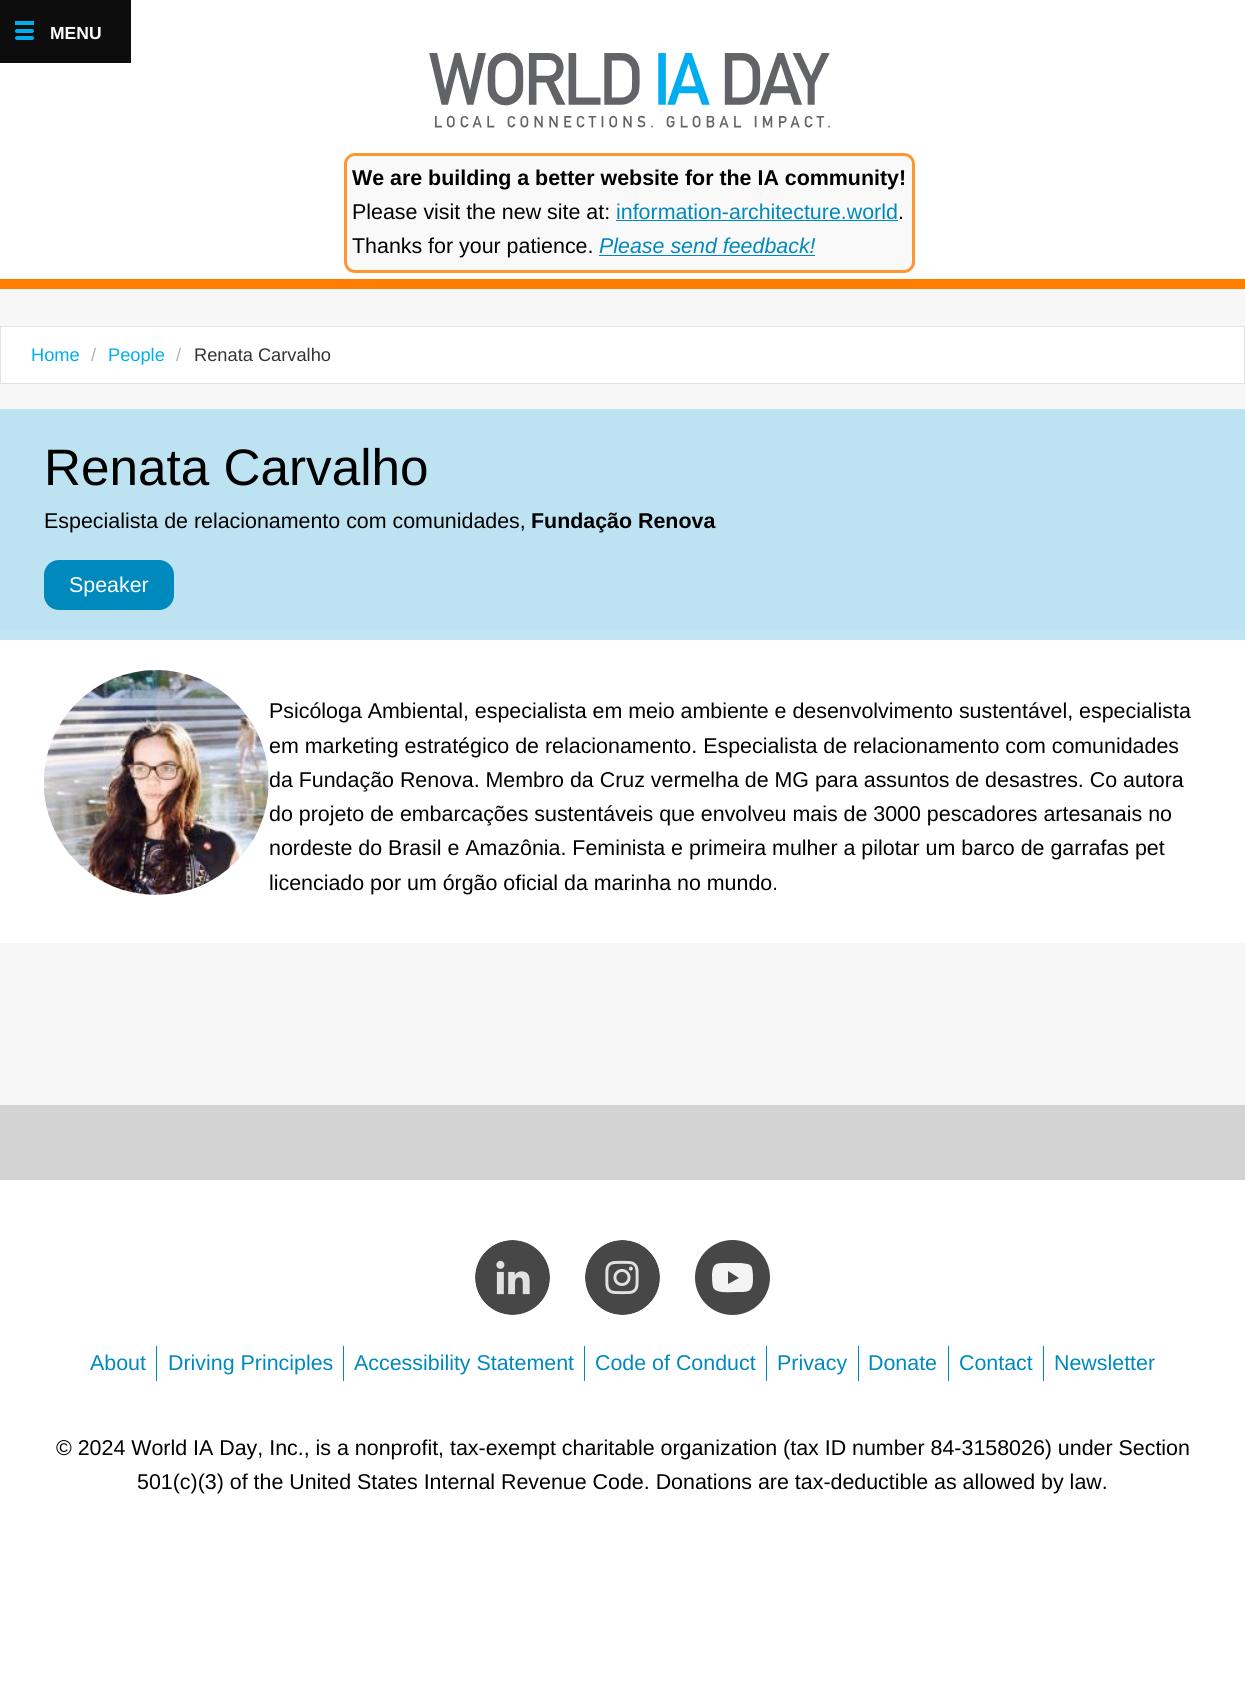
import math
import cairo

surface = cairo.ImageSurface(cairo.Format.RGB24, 1245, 1687)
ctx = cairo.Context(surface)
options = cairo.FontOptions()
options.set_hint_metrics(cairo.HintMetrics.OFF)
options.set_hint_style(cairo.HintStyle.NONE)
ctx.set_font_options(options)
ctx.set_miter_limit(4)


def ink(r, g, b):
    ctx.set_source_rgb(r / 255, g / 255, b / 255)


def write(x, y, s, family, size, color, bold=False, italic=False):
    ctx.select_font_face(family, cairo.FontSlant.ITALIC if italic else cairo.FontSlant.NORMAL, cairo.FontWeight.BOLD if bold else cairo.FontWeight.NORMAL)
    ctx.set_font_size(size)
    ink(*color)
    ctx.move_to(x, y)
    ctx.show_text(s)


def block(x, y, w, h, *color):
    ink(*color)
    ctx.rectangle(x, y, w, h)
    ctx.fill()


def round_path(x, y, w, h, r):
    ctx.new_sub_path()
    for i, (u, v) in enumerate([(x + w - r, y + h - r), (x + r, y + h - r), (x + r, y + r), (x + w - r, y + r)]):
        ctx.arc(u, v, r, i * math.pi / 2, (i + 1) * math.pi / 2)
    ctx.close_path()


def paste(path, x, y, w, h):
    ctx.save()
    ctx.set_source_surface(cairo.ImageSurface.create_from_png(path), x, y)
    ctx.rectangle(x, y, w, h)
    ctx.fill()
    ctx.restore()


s1 = dict(family="Liberation Sans", size=17.5, color=(255, 255, 255), bold=True)
s2 = dict(family="Liberation Sans", size=21.4, color=(0, 0, 0), bold=True)
s3 = dict(family="Liberation Sans", size=21.4, color=(0, 0, 0))
s4 = dict(family="Liberation Sans", size=21.4, color=(0, 137, 188))
s5 = dict(family="Liberation Sans", size=21.4, color=(0, 137, 188), italic=True)
s6 = dict(family="Liberation Sans", size=18.25, color=(0, 174, 239))
s7 = dict(family="Liberation Sans", size=18.25, color=(179, 179, 179))
s8 = dict(family="Liberation Sans", size=18.25, color=(51, 51, 51))
s9 = dict(family="Liberation Sans", size=51.25, color=(0, 0, 0))
s10 = dict(family="Liberation Sans", size=21.4, color=(255, 255, 255))

ink(255, 255, 255)
ctx.paint()
block(0, 0, 131, 63, 13, 13, 13)
ink(0, 174, 239)
round_path(15, 29, 19, 4, 2)
ctx.fill()
block(15, 21, 19, 4, 0, 174, 239)
write(50, 39, "MENU", **s1)
ink(0, 174, 239)
round_path(15, 36, 19, 4, 2)
ctx.fill()
block(0, 289, 1245, 816, 247, 247, 247)
block(0, 279, 1245, 10, 255, 125, 0)
paste("pic1.png", 429, 52, 401, 76)
ink(249, 249, 249)
round_path(345.5, 154.5, 568, 117, 9.5)
ctx.fill_preserve()
ink(254, 150, 50)
ctx.set_line_width(3)
ctx.stroke()
write(352, 185, "We are building a better website for the IA community!", **s2)
write(352, 219, "Please visit the new site at:", **s3)
write(616, 219, "information-architecture.world", **s4)
block(616, 220, 282, 1, 0, 137, 188)
write(898, 219, ".", **s3)
write(352, 253, "Thanks for your patience.", **s3)
write(599, 253, "Please send feedback!", **s5)
block(599, 255, 216, 1, 0, 137, 188)
ink(255, 255, 255)
ctx.rectangle(0.5, 326.5, 1244, 57)
ctx.fill_preserve()
ink(227, 227, 227)
ctx.set_line_width(1)
ctx.stroke()
write(31, 361, "Home", **s6)
write(91, 361, "/", **s7)
write(108, 361, "People", **s6)
write(176, 361, "/", **s7)
write(194, 361, "Renata Carvalho", **s8)
block(0, 409, 1245, 221, 189, 226, 241)
write(44, 485, "Renata Carvalho", **s9)
write(44, 528, "Especialista de relacionamento com comunidades,", **s3)
write(531, 528, "Fundação Renova", **s2)
ink(0, 137, 188)
round_path(44, 560, 130, 50, 15)
ctx.fill()
write(69, 592, "Speaker", **s10)
block(0, 630, 1245, 10, 192, 228, 242)
block(0, 640, 1245, 303, 255, 255, 255)
paste("pic2.png", 44, 670, 225, 225)
write(269, 718, "Psicóloga Ambiental, especialista em meio ambiente e desenvolvimento sustentável, especialista", **s3)
write(269, 753, "em marketing estratégico de relacionamento. Especialista de relacionamento com comunidades", **s3)
write(269, 787, "da Fundação Renova. Membro da Cruz vermelha de MG para assuntos de desastres. Co autora", **s3)
write(269, 821, "do projeto de embarcações sustentáveis que envolveu mais de 3000 pescadores artesanais no", **s3)
write(269, 855, "nordeste do Brasil e Amazônia. Feminista e primeira mulher a pilotar um barco de garrafas pet", **s3)
write(269, 890, "licenciado por um órgão oficial da marinha no mundo.", **s3)
block(0, 1105, 1245, 75, 211, 211, 211)
paste("pic3.png", 475, 1240, 75, 75)
paste("pic4.png", 585, 1240, 75, 75)
ink(71, 71, 71)
ctx.arc(732.5, 1277.5, 37.5, 0, 2 * math.pi)
ctx.fill()
ink(243, 243, 243)
ctx.new_path()
ctx.move_to(752, 1268)
ctx.curve_to(751, 1263, 745, 1264, 741, 1263)
ctx.line_to(729, 1263)
ctx.curve_to(717, 1263, 713, 1262, 712, 1274)
ctx.curve_to(712, 1279, 712, 1283, 713, 1287)
ctx.curve_to(715, 1294, 731, 1292, 736, 1292)
ctx.curve_to(747, 1292, 752, 1293, 753, 1281)
ctx.curve_to(753, 1277, 753, 1272, 752, 1268)
ctx.close_path()
ctx.move_to(728, 1284)
ctx.line_to(728, 1271)
ctx.line_to(739, 1278)
ctx.close_path()
ctx.fill()
block(156, 1346, 1, 35, 0, 137, 188)
write(90, 1370, "About", **s4)
block(343, 1346, 1, 35, 0, 137, 188)
write(168, 1370, "Driving Principles", **s4)
block(584, 1346, 1, 35, 0, 137, 188)
write(354, 1370, "Accessibility Statement", **s4)
block(766, 1346, 1, 35, 0, 137, 188)
write(595, 1370, "Code of Conduct", **s4)
block(858, 1346, 1, 35, 0, 137, 188)
write(777, 1370, "Privacy", **s4)
block(948, 1346, 1, 35, 0, 137, 188)
write(868, 1370, "Donate", **s4)
block(1043, 1346, 1, 35, 0, 137, 188)
write(959, 1370, "Contact", **s4)
write(1054, 1370, "Newsletter", **s4)
write(56, 1455, "© 2024 World IA Day, Inc., is a nonprofit, tax-exempt charitable organization (tax ID number 84-3158026) under Section", **s3)
write(137, 1489, "501(c)(3) of the United States Internal Revenue Code. Donations are tax-deductible as allowed by law.", **s3)
surface.write_to_png("screenshot.png")
